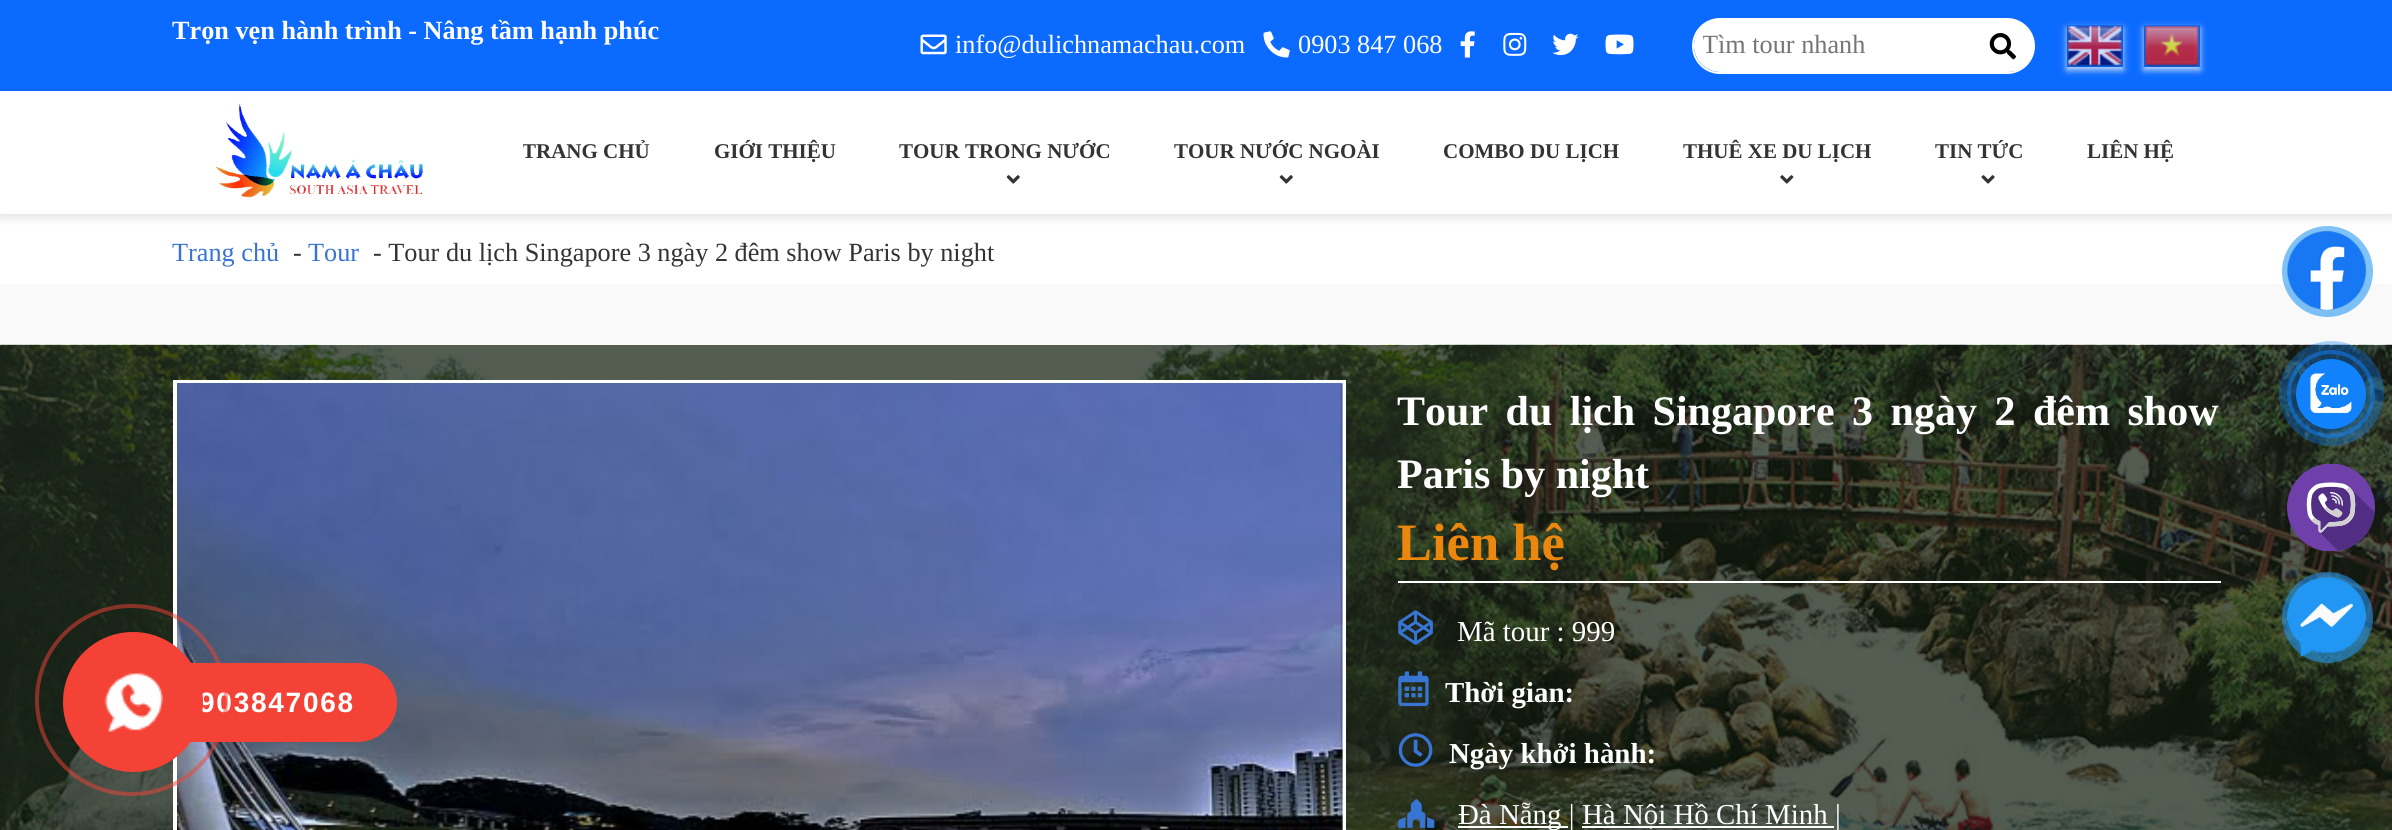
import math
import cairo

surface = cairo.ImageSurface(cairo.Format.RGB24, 2392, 830)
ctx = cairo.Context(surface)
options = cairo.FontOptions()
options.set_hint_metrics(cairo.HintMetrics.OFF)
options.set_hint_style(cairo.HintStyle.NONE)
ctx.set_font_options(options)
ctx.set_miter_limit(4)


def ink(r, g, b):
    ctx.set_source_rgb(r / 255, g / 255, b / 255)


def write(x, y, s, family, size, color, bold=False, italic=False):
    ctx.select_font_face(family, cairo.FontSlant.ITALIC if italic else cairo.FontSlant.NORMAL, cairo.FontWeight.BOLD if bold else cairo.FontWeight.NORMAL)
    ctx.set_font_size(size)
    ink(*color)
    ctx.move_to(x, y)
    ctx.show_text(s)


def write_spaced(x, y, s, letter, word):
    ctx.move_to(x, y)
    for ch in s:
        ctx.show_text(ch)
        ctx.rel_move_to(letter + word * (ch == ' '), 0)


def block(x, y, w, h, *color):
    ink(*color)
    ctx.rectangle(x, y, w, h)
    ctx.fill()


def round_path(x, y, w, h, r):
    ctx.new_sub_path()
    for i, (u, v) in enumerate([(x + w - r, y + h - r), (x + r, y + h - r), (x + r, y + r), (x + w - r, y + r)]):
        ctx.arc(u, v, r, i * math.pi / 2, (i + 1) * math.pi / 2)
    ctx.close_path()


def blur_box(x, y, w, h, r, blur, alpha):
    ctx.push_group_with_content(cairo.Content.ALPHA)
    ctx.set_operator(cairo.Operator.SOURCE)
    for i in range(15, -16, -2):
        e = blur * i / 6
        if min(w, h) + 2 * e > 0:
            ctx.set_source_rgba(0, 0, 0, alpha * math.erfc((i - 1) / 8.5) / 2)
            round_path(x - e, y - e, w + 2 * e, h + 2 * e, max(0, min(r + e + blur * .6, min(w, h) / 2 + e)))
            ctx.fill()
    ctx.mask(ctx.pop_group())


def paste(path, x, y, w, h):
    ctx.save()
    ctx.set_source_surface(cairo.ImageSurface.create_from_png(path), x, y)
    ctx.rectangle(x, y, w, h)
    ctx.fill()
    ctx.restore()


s1 = dict(family="Liberation Serif", size=26.25, color=(255, 255, 255), bold=True)
s2 = dict(family="Liberation Serif", size=26.25, color=(255, 255, 255))
s3 = dict(family="Liberation Serif", size=26.25, color=(117, 117, 117))
s4 = dict(family="Liberation Serif", size=21, color=(51, 51, 51), bold=True)
s5 = dict(family="Liberation Serif", size=26.25, color=(56, 116, 210))
s6 = dict(family="Liberation Serif", size=26.25, color=(51, 51, 51))
s7 = dict(family="Liberation Serif", size=42, color=(255, 255, 255), bold=True)
s8 = dict(family="Liberation Serif", size=52.5, color=(236, 135, 14), bold=True)
s9 = dict(family="Liberation Serif", size=28.9, color=(255, 255, 255))
s10 = dict(family="Liberation Serif", size=28.9, color=(255, 255, 255), bold=True)

ink(249, 249, 249)
ctx.paint()
block(0, 0, 2392, 91, 11, 106, 255)
write(172, 39, "Trọn vẹn hành trình - Nâng tầm hạnh phúc", **s1)
paste("pic1.png", 920, 34, 27, 21)
write(955, 53, "info@dulichnamachau.com", **s2)
paste("pic2.png", 1263, 31, 27, 27)
write(1298, 53, "0903 847 068", **s2)
paste("pic3.png", 1460, 31, 15, 27)
paste("pic4.png", 1503, 32, 24, 24)
paste("pic5.png", 1552, 33, 27, 23)
paste("pic6.png", 1605, 34, 29, 21)
round_path(1693, 19, 341, 54, 27)
ctx.stroke()
round_path(1694, 19, 340, 53, 26.5)
ctx.fill()
ctx.save()
ctx.rectangle(1703, 32, 322, 29)
ctx.clip()
write(1702, 53, "Tìm tour nhanh", **s3)
ctx.restore()
paste("pic7.png", 1989, 33, 27, 27)
ctx.save()
ctx.set_fill_rule(cairo.FillRule.EVEN_ODD)
ctx.new_path()
ctx.move_to(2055, 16)
ctx.line_to(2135, 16)
ctx.line_to(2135, 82)
ctx.line_to(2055, 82)
ctx.close_path()
ctx.move_to(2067, 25)
ctx.line_to(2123, 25)
ctx.line_to(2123, 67)
ctx.line_to(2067, 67)
ctx.close_path()
ctx.clip()
ink(206, 225, 255)
blur_box(2067, 28, 56, 42, 0, 3.5, 1)
ctx.restore()
paste("pic8.png", 2066, 25, 57, 42)
ctx.save()
ctx.set_fill_rule(cairo.FillRule.EVEN_ODD)
ctx.new_path()
ctx.move_to(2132, 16)
ctx.line_to(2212, 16)
ctx.line_to(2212, 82)
ctx.line_to(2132, 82)
ctx.close_path()
ctx.move_to(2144, 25)
ctx.line_to(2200, 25)
ctx.line_to(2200, 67)
ctx.line_to(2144, 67)
ctx.close_path()
ctx.clip()
ink(206, 225, 255)
blur_box(2144, 28, 56, 42, 0, 3.5, 1)
ctx.restore()
paste("pic9.png", 2143, 25, 57, 42)
block(0, 214, 2392, 70, 255, 255, 255)
ctx.arc(2327.5, 271.5, 38.5, 0, 2 * math.pi)
ctx.set_source_rgba(0.129, 0.588, 0.953, 0.58)
ctx.set_line_width(14)
ctx.stroke()
paste("pic20.png", 2287, 231, 79, 79)
ink(0, 0, 0)
blur_box(0, 95, 2392, 122, 0, 5, 0.13)
block(0, 91, 2392, 123, 255, 255, 255)
paste("pic10.png", 216, 103, 207, 95)
ctx.save()
ctx.rectangle(523, 131, 146, 44)
ctx.clip()
write(522, 158, "TRANG CHỦ", **s4)
ctx.restore()
write(714, 158, "GIỚI THIỆU", **s4)
write(899, 158, "TOUR TRONG NƯỚC", **s4)
paste("pic11.png", 1006, 175, 14, 9)
write(1174, 158, "TOUR NƯỚC NGOÀI", **s4)
paste("pic11.png", 1279, 175, 14, 9)
write(1443, 158, "COMBO DU LỊCH", **s4)
write(1683, 158, "THUÊ XE DU LỊCH", **s4)
paste("pic12.png", 1780, 175, 14, 9)
write(1935, 158, "TIN TỨC", **s4)
paste("pic13.png", 1981, 175, 14, 9)
write(2087, 158, "LIÊN HỆ", **s4)
write(172, 261, "Trang chủ", **s5)
write(293, 261, "-", **s6)
write(308, 261, "Tour", **s5)
write(373, 261, "- Tour du lịch Singapore 3 ngày 2 đêm show Paris by night", **s6)
paste("pic14.png", 0, 344, 2392, 486)
ctx.rectangle(175, 382, 1169, 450)
ink(255, 255, 255)
ctx.set_line_width(4)
ctx.stroke()
paste("pic15.png", 177, 383, 1166, 447)
block(1398, 581, 823, 2, 255, 255, 255)
ctx.select_font_face("Liberation Serif", cairo.FontSlant.NORMAL, cairo.FontWeight.BOLD)
ctx.set_font_size(42)
write_spaced(1397, 425, "Tour du lịch Singapore 3 ngày 2 đêm show", 0, 7)
write(1397, 488, "Paris by night", **s7)
write(1397, 560, "Liên hệ", **s8)
paste("pic16.png", 1398, 610, 35, 35)
write(1457, 641, "Mã tour : 999", **s9)
paste("pic17.png", 1398, 671, 31, 36)
write(1445, 702, "Thời gian:", **s10)
paste("pic18.png", 1398, 733, 35, 34)
write(1449, 763, "Ngày khởi hành:", **s10)
paste("pic19.png", 1398, 799, 37, 29)
block(1458, 826, 110, 2, 255, 255, 255)
write(1458, 824, "Đà Nẵng |", **s9)
block(1582, 826, 252, 2, 255, 255, 255)
write(1582, 824, "Hà Nội Hồ Chí Minh |", **s9)
ctx.new_path()
ctx.arc(2331, 394, 42, 0, 2 * math.pi)
ctx.set_source_rgba(0.067, 0.51, 0.988, 0.5)
ctx.stroke()
ctx.set_source_rgba(0.067, 0.51, 0.988, 0.34)
ctx.arc(2331.5, 393.5, 52.5, 0, 2 * math.pi)
ctx.fill()
ink(17, 130, 252)
ctx.arc(2331, 394, 35, 0, 2 * math.pi)
ctx.fill()
paste("pic21.png", 2310, 373, 42, 41)
paste("pic22.png", 2287, 464, 88, 87)
ctx.arc(2327.5, 617.5, 38.5, 0, 2 * math.pi)
ctx.set_source_rgba(0.129, 0.588, 0.953, 0.58)
ctx.set_line_width(14)
ctx.stroke()
paste("pic23.png", 2287, 577, 79, 80)
ink(244, 67, 54)
round_path(109, 663, 288, 79, 39.5)
ctx.fill()
ctx.select_font_face("Liberation Sans", cairo.FontSlant.NORMAL, cairo.FontWeight.BOLD)
ctx.set_font_size(28)
ink(255, 255, 255)
write_spaced(199, 712, "903847068", 1.75, 0)
round_path(37, 606, 189, 188, 94)
ctx.set_source_rgba(0.957, 0.263, 0.212, 0.5)
ctx.set_line_width(4)
ctx.stroke()
ink(244, 67, 54)
ctx.arc(133, 702, 70, 0, 2 * math.pi)
ctx.fill()
paste("pic24.png", 104, 672, 59, 60)
surface.write_to_png("screenshot.png")
